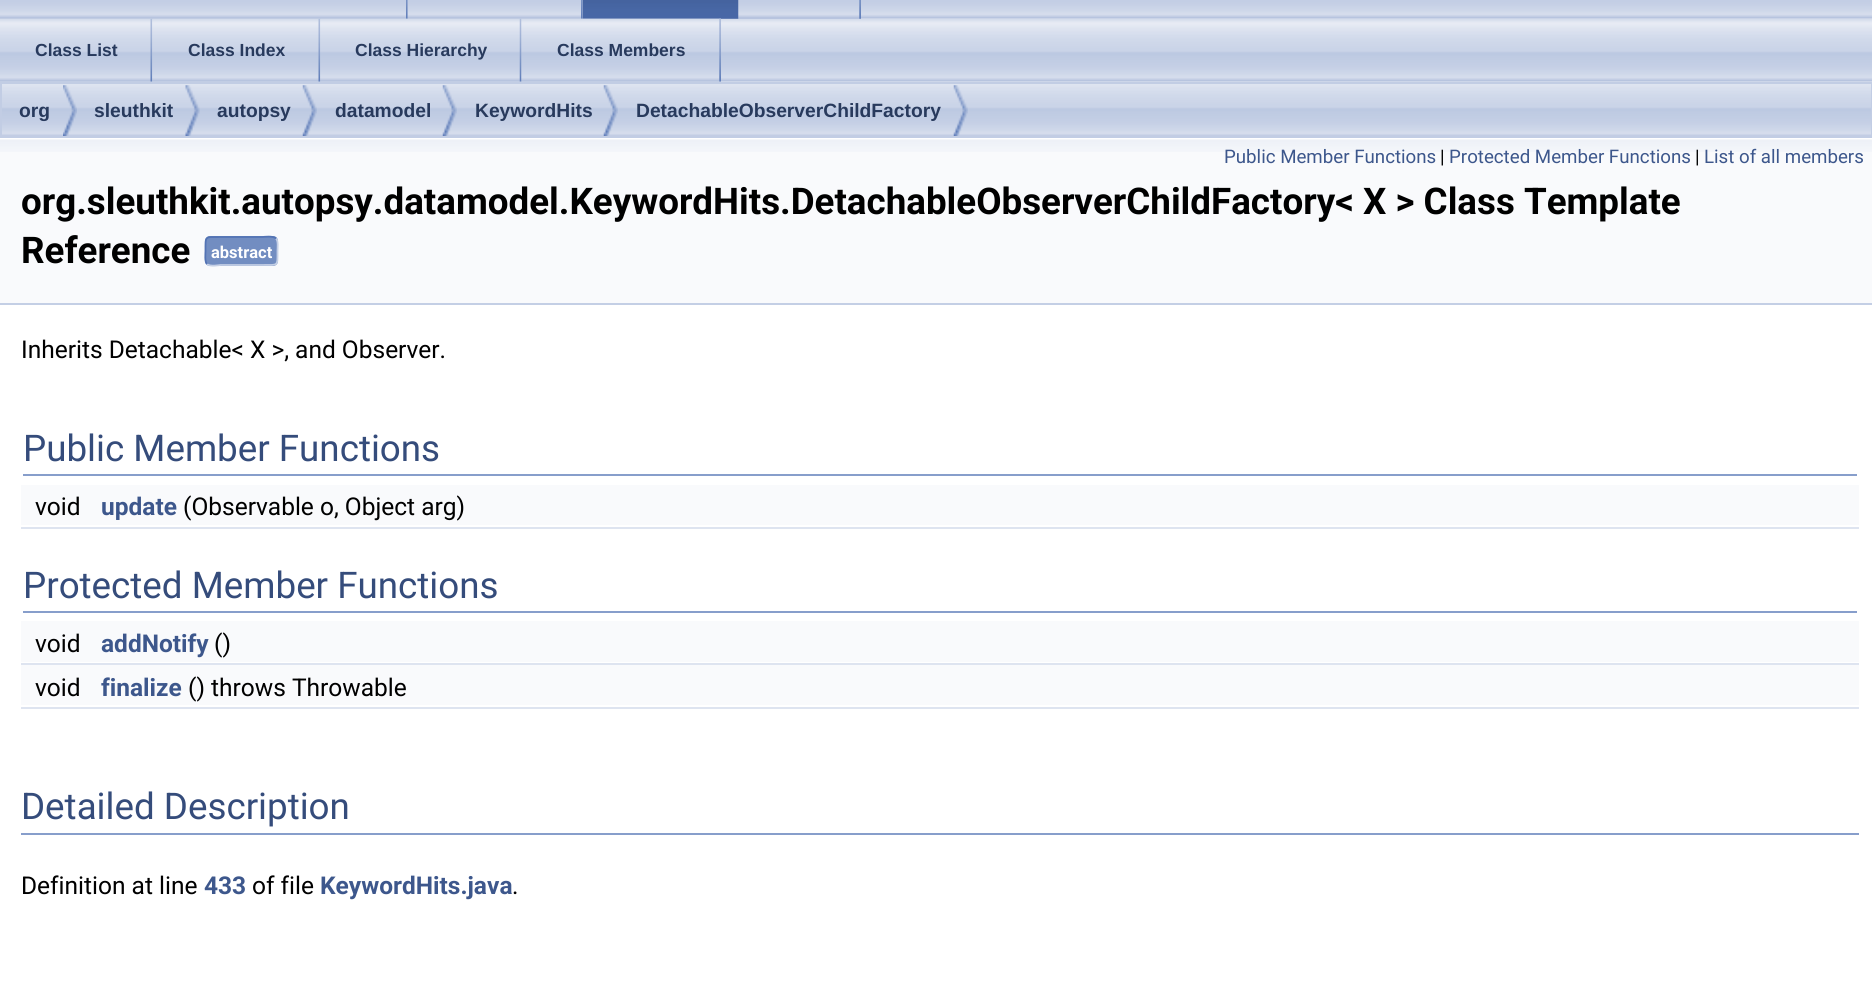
import math
import cairo

surface = cairo.ImageSurface(cairo.Format.RGB24, 1872, 986)
ctx = cairo.Context(surface)
options = cairo.FontOptions()
options.set_hint_metrics(cairo.HintMetrics.OFF)
options.set_hint_style(cairo.HintStyle.NONE)
ctx.set_font_options(options)
ctx.set_miter_limit(4)


def ink(r, g, b):
    ctx.set_source_rgb(r / 255, g / 255, b / 255)


def write(x, y, s, family, size, color, bold=False, italic=False):
    ctx.select_font_face(family, cairo.FontSlant.ITALIC if italic else cairo.FontSlant.NORMAL, cairo.FontWeight.BOLD if bold else cairo.FontWeight.NORMAL)
    ctx.set_font_size(size)
    ink(*color)
    ctx.move_to(x, y)
    ctx.show_text(s)


def block(x, y, w, h, *color):
    ink(*color)
    ctx.rectangle(x, y, w, h)
    ctx.fill()


def round_path(x, y, w, h, r):
    ctx.new_sub_path()
    for i, (u, v) in enumerate([(x + w - r, y + h - r), (x + r, y + h - r), (x + r, y + r), (x + w - r, y + r)]):
        ctx.arc(u, v, r, i * math.pi / 2, (i + 1) * math.pi / 2)
    ctx.close_path()


def paste(path, x, y, w, h):
    ctx.save()
    ctx.set_source_surface(cairo.ImageSurface.create_from_png(path), x, y)
    ctx.rectangle(x, y, w, h)
    ctx.fill()
    ctx.restore()


s1 = dict(family="Liberation Sans", size=17.5, color=(40, 58, 93), bold=True)
s2 = dict(family="Liberation Sans", size=19.25, color=(40, 58, 93), bold=True)
s3 = dict(family="Roboto", size=18.7, color=(61, 87, 140))
s4 = dict(family="Roboto", size=18.7, color=(0, 0, 0))
s5 = dict(family="Roboto", size=36.75, color=(0, 0, 0), bold=True)
s6 = dict(family="Roboto", size=16.5, color=(255, 255, 255), bold=True)
s7 = dict(family="Roboto", size=24.5, color=(0, 0, 0))
s8 = dict(family="Roboto", size=36.75, color=(53, 76, 123))
s9 = dict(family="Roboto", size=24.5, color=(61, 87, 140), bold=True)

ink(255, 255, 255)
ctx.paint()
paste("pic1.png", 0, 0, 1872, 19)
paste("pic10.png", 0, 18, 1872, 64)
block(0, 18, 182, 1, 184, 196, 223)
paste("pic2.png", 182, 18, 226, 1)
paste("pic3.png", 406, 0, 2, 19)
paste("pic4.png", 407, 0, 176, 19)
paste("pic5.png", 581, 0, 2, 19)
paste("pic6.png", 582, 0, 157, 19)
paste("pic7.png", 582, 0, 157, 19)
paste("pic8.png", 738, 0, 123, 19)
paste("pic9.png", 859, 0, 2, 19)
paste("pic11.png", 0, 18, 152, 64)
paste("pic12.png", 150, 18, 3, 64)
write(35, 56, "Class List", **s1)
paste("pic13.png", 152, 18, 168, 64)
paste("pic14.png", 318, 18, 3, 64)
write(188, 56, "Class Index", **s1)
paste("pic15.png", 320, 18, 202, 64)
paste("pic16.png", 519, 18, 3, 64)
write(355, 56, "Class Hierarchy", **s1)
paste("pic17.png", 521, 18, 200, 64)
paste("pic18.png", 719, 18, 2, 64)
write(557, 56, "Class Members", **s1)
paste("pic19.png", 0, 81, 1872, 55)
ctx.rectangle(1, 83, 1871, 54)
ink(194, 205, 228)
ctx.stroke()
paste("pic20.png", 63, 85, 14, 51)
write(19, 117, "org", **s2)
paste("pic21.png", 185, 85, 15, 51)
write(94, 117, "sleuthkit", **s2)
paste("pic22.png", 302, 85, 15, 51)
write(217, 117, "autopsy", **s2)
paste("pic22.png", 442, 85, 15, 51)
write(335, 117, "datamodel", **s2)
paste("pic22.png", 603, 85, 15, 51)
write(475, 117, "KeywordHits", **s2)
paste("pic22.png", 953, 85, 15, 51)
write(636, 117, "DetachableObserverChildFactory", **s2)
block(0, 152, 1872, 151, 249, 250, 252)
paste("pic23.png", 0, 138, 1872, 14)
block(0, 303, 1872, 2, 196, 207, 229)
write(1224, 163, "Public Member Functions", **s3)
write(1440, 163, "|", **s4)
write(1449, 163, "Protected Member Functions", **s3)
write(1695, 163, "|", **s4)
write(1704, 163, "List of all members", **s3)
write(21, 214, "org.sleuthkit.autopsy.datamodel.KeywordHits.DetachableObserverChildFactory< X > Class Template", **s5)
write(21, 263, "Reference", **s5)
ink(114, 141, 193)
round_path(205, 236, 73, 30, 5)
ctx.fill()
ctx.new_path()
ctx.move_to(276, 238.5)
ctx.curve_to(278.5, 241, 277.5, 248, 277.5, 251)
ctx.curve_to(277.5, 266.5, 278.5, 265, 262.5, 265)
ctx.line_to(220.5, 265)
ctx.curve_to(219.5, 265, 210, 267, 207, 264)
ink(196, 207, 229)
ctx.set_line_width(1.8)
ctx.stroke()
ctx.new_path()
ctx.move_to(207, 264)
ctx.curve_to(204.5, 261.5, 205.5, 254, 205.5, 251)
ctx.curve_to(205.5, 235.5, 204.5, 237, 220.5, 237)
ctx.line_to(262.5, 237)
ctx.curve_to(263.5, 237, 273, 235.5, 276, 238.5)
ink(83, 115, 180)
ctx.stroke()
write(211, 258, "abstract", **s6)
write(21, 358, "Inherits Detachable< X >, and Observer.", **s7)
block(23, 474, 1834, 2, 135, 158, 203)
write(23, 461, "Public Member Functions", **s8)
block(21, 485, 1838, 40, 249, 250, 252)
write(35, 515, "void", **s7)
write(101, 515, "update", **s9)
write(183, 515, "(Observable o, Object arg)", **s7)
block(21, 527, 1838, 2, 222, 228, 240)
block(23, 611, 1834, 2, 135, 158, 203)
write(23, 598, "Protected Member Functions", **s8)
block(21, 621, 1838, 41, 249, 250, 252)
write(35, 652, "void", **s7)
write(101, 652, "addNotify", **s9)
write(214, 652, "()", **s7)
block(21, 663, 1838, 2, 222, 228, 240)
block(21, 665, 1838, 40, 249, 250, 252)
write(35, 696, "void", **s7)
write(101, 696, "finalize", **s9)
write(188, 696, "() throws Throwable", **s7)
block(21, 707, 1838, 2, 222, 228, 240)
block(21, 833, 1838, 2, 135, 158, 203)
write(21, 819, "Detailed Description", **s8)
write(21, 894, "Definition at line", **s7)
write(204, 894, "433", **s9)
write(252, 894, "of file", **s7)
write(320, 894, "KeywordHits.java", **s9)
write(512, 894, ".", **s7)
surface.write_to_png("screenshot.png")
